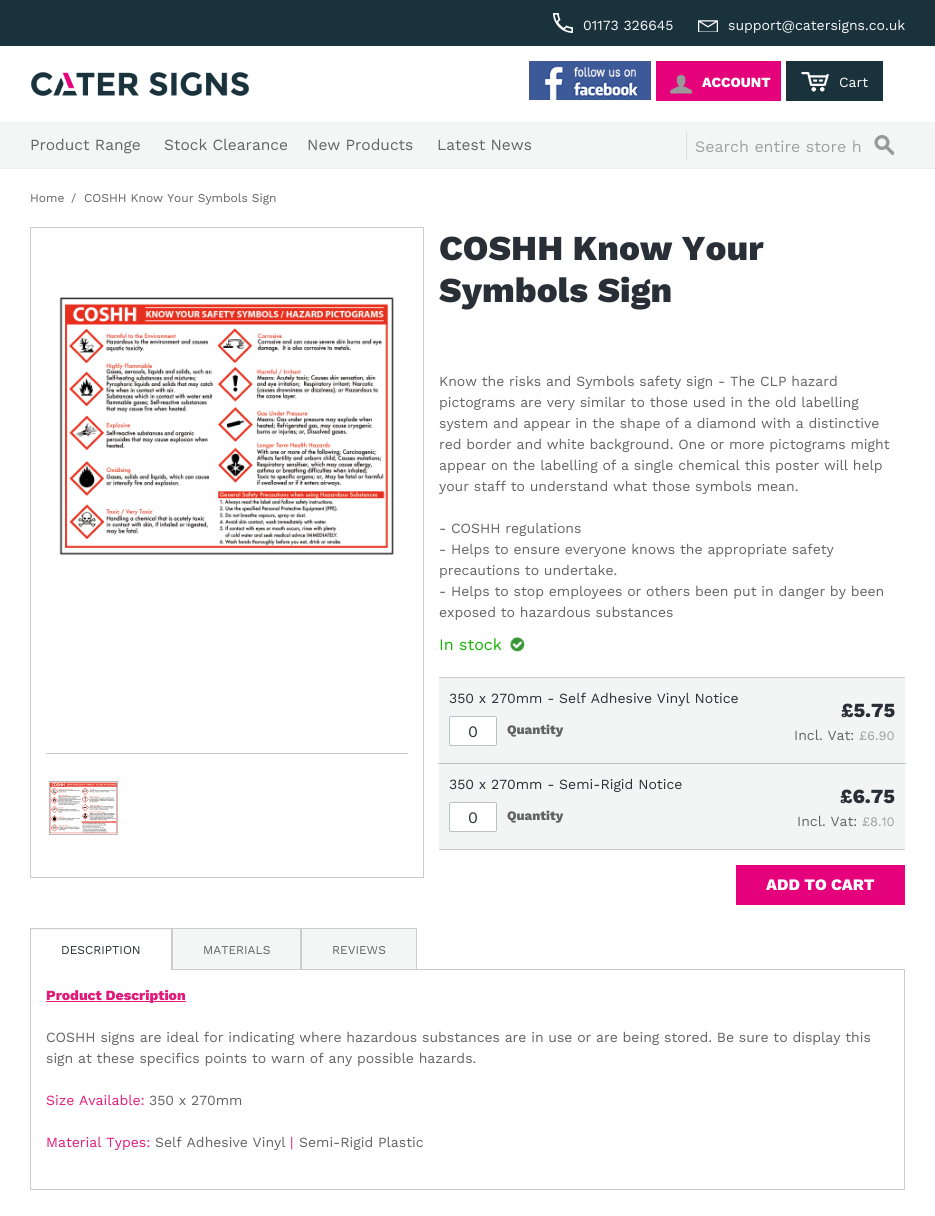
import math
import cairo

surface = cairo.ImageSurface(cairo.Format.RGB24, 935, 1216)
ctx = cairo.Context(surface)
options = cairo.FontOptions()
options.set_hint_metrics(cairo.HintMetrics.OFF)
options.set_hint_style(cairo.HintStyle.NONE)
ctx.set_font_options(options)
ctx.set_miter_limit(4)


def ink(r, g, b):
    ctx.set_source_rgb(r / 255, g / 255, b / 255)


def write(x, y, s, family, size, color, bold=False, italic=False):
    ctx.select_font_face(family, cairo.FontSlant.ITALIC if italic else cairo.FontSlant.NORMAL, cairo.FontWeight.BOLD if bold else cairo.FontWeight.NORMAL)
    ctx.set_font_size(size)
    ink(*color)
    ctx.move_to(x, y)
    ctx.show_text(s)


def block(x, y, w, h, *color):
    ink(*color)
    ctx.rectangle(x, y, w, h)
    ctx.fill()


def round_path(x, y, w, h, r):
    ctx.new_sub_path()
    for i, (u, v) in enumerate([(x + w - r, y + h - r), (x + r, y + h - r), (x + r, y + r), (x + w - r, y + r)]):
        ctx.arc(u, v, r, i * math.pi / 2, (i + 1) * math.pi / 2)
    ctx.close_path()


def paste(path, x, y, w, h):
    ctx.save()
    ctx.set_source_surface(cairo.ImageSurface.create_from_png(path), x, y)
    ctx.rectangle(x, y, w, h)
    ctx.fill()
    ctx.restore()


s1 = dict(family="Work Sans", size=14, color=(247, 247, 247))
s2 = dict(family="Work Sans", size=15.5, color=(99, 99, 99))
s3 = dict(family="Work Sans ExtraBold", size=14, color=(255, 255, 255))
s4 = dict(family="Work Sans", size=14, color=(255, 255, 255))
s5 = dict(family="Work Sans", size=16, color=(160, 160, 160))
s6 = dict(family="Work Sans", size=12, color=(99, 99, 99))
s7 = dict(family="Work Sans ExtraBold", size=35, color=(41, 47, 54))
s8 = dict(family="Work Sans", size=14, color=(99, 99, 99))
s9 = dict(family="Work Sans", size=16, color=(17, 180, 0))
s10 = dict(family="Work Sans", size=14, color=(41, 47, 54))
s11 = dict(family="Work Sans", size=16, color=(41, 47, 54))
s12 = dict(family="Work Sans ExtraBold", size=13, color=(99, 99, 99))
s13 = dict(family="Work Sans ExtraBold", size=20, color=(41, 47, 54))
s14 = dict(family="Work Sans", size=13, color=(160, 160, 160))
s15 = dict(family="Work Sans ExtraBold", size=16, color=(255, 255, 255))
s16 = dict(family="Work Sans", size=12, color=(41, 47, 54))
s17 = dict(family="Work Sans ExtraBold", size=14, color=(224, 27, 122))
s18 = dict(family="Work Sans", size=14, color=(224, 27, 122))

ink(255, 255, 255)
ctx.paint()
block(0, 0, 935, 46, 26, 50, 60)
paste("pic1.png", 553, 13, 20, 20)
write(583, 30, "01173 326645", **s1)
paste("pic2.png", 698, 20, 20, 12)
write(728, 30, "support@catersigns.co.uk", **s1)
block(0, 122, 935, 46, 244, 246, 245)
block(0, 168, 935, 1, 237, 237, 237)
write(30, 150, "Product Range", **s2)
write(164, 150, "Stock Clearance", **s2)
write(307, 150, "New Products", **s2)
write(437, 150, "Latest News", **s2)
paste("pic3.png", 31, 72, 219, 24)
paste("pic4.png", 529, 61, 122, 39)
block(656, 61, 125, 40, 229, 1, 122)
paste("pic5.png", 670, 74, 23, 20)
write(702, 87, "ACCOUNT", **s3)
block(786, 61, 97, 40, 26, 50, 60)
paste("pic6.png", 801, 71, 28, 21)
write(839, 87, "Cart", **s4)
block(686, 132, 1, 28, 217, 221, 222)
write(695, 152, "Search entire store h", **s5)
paste("pic7.png", 874, 134, 21, 22)
write(30, 202, "Home", **s6)
write(71, 202, "/", **s6)
write(84, 202, "COSHH Know Your Symbols Sign", **s6)
ctx.rectangle(30.5, 227.5, 393, 650)
ink(204, 204, 204)
ctx.set_line_width(1)
ctx.stroke()
paste("pic8.png", 59, 297, 335, 259)
block(46, 753, 362, 1, 204, 204, 204)
paste("pic9.png", 48, 781, 70, 54)
write(439, 260, "COSHH Know Your", **s7)
write(439, 302, "Symbols Sign", **s7)
write(439, 386, "Know the risks and Symbols safety sign - The CLP hazard", **s8)
write(439, 407, "pictograms are very similar to those used in the old labelling", **s8)
write(439, 428, "system and appear in the shape of a diamond with a distinctive", **s8)
write(439, 449, "red border and white background. One or more pictograms might", **s8)
write(439, 470, "appear on the labelling of a single chemical this poster will help", **s8)
write(439, 491, "your staff to understand what those symbols mean.", **s8)
write(439, 533, "- COSHH regulations", **s8)
write(439, 554, "- Helps to ensure everyone knows the appropriate safety", **s8)
write(439, 575, "precautions to undertake.", **s8)
write(439, 596, "- Helps to stop employees or others been put in danger by been", **s8)
write(439, 617, "exposed to hazardous substances", **s8)
paste("pic10.png", 509, 636, 18, 18)
write(439, 650, "In stock", **s9)
block(439, 678, 466, 171, 243, 245, 245)
block(439, 677, 466, 1, 201, 205, 206)
block(439, 849, 466, 1, 201, 205, 206)
write(449, 703, "350 x 270mm - Self Adhesive Vinyl Notice", **s10)
ink(255, 255, 255)
round_path(449.5, 716.5, 47, 29, 1.5)
ctx.fill_preserve()
ink(186, 194, 197)
ctx.stroke()
write(468, 737, "0", **s11)
write(507, 734, "Quantity", **s12)
block(438, 763, 468, 1, 192, 192, 192)
write(841, 717, "£5.75", **s13)
write(794, 740, "Incl. Vat:", **s8)
write(859, 740, "£6.90", **s14)
write(449, 789, "350 x 270mm - Semi-Rigid Notice", **s10)
ink(255, 255, 255)
round_path(449.5, 802.5, 47, 29, 1.5)
ctx.fill_preserve()
ink(186, 194, 197)
ctx.stroke()
write(468, 823, "0", **s11)
write(507, 820, "Quantity", **s12)
write(840, 803, "£6.75", **s13)
write(797, 826, "Incl. Vat:", **s8)
write(862, 826, "£8.10", **s14)
block(736, 865, 169, 40, 229, 0, 124)
write(766, 890, "ADD TO CART", **s15)
block(31, 929, 140, 1, 244, 246, 245)
block(30, 928, 387, 1, 204, 204, 204)
block(171, 928, 2, 41, 204, 204, 204)
block(30, 928, 1, 41, 204, 204, 204)
ctx.rectangle(30.5, 969.5, 874, 220)
ctx.stroke()
block(31, 969, 140, 1, 255, 255, 255)
write(61, 954, "DESCRIPTION", **s16)
block(173, 929, 127, 40, 244, 246, 245)
block(300, 928, 2, 41, 204, 204, 204)
write(203, 954, "MATERIALS", **s6)
block(302, 929, 114, 40, 244, 246, 245)
block(416, 928, 1, 41, 204, 204, 204)
write(332, 954, "REVIEWS", **s6)
block(46, 1001, 140, 1, 224, 27, 122)
write(46, 1000, "Product Description", **s17)
write(46, 1042, "COSHH signs are ideal for indicating where hazardous substances are in use or are being stored. Be sure to display this", **s8)
write(46, 1063, "sign at these specifics points to warn of any possible hazards.", **s8)
write(46, 1105, "Size Available:", **s18)
write(149, 1105, "350 x 270mm", **s8)
write(46, 1147, "Material Types:", **s18)
write(155, 1147, "Self Adhesive Vinyl", **s8)
write(290, 1147, "|", **s18)
write(299, 1147, "Semi-Rigid Plastic", **s8)
surface.write_to_png("screenshot.png")
